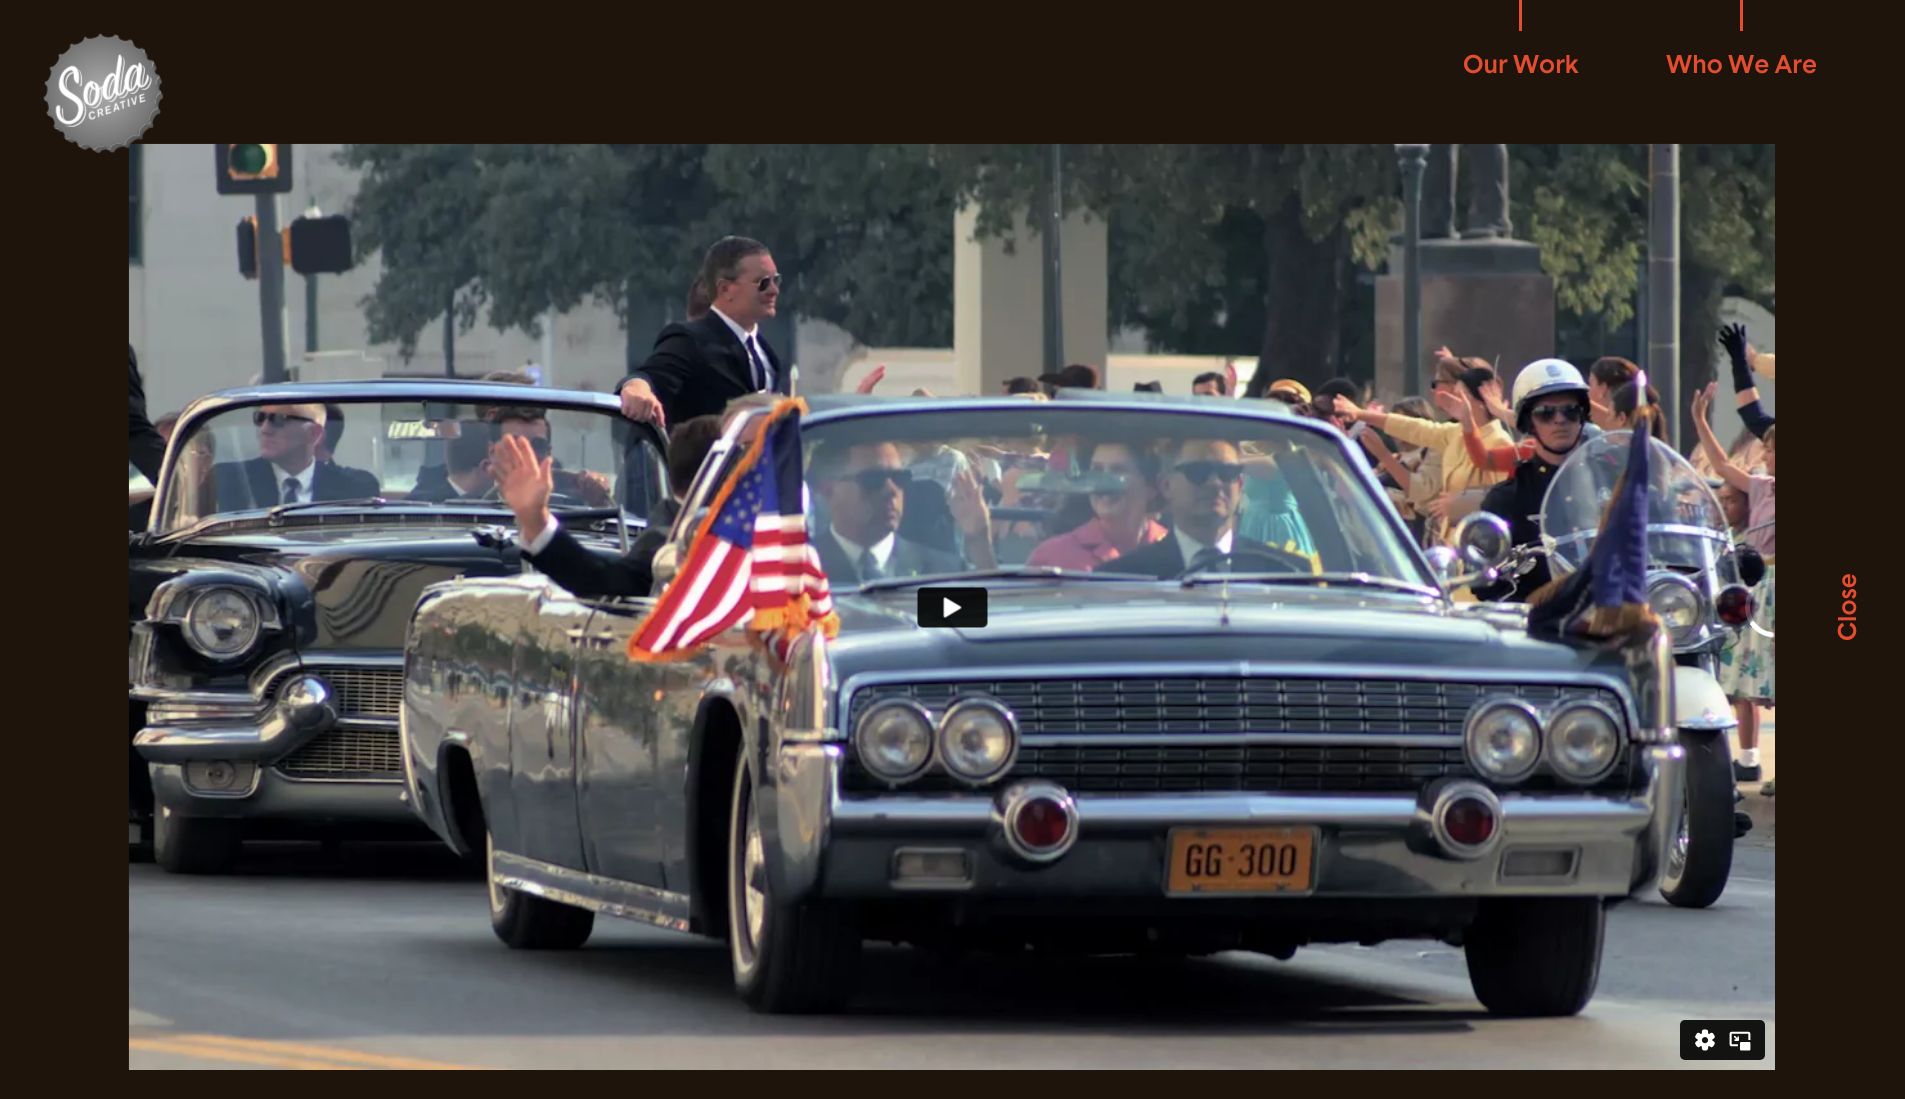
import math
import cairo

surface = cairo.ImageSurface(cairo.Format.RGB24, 1905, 1099)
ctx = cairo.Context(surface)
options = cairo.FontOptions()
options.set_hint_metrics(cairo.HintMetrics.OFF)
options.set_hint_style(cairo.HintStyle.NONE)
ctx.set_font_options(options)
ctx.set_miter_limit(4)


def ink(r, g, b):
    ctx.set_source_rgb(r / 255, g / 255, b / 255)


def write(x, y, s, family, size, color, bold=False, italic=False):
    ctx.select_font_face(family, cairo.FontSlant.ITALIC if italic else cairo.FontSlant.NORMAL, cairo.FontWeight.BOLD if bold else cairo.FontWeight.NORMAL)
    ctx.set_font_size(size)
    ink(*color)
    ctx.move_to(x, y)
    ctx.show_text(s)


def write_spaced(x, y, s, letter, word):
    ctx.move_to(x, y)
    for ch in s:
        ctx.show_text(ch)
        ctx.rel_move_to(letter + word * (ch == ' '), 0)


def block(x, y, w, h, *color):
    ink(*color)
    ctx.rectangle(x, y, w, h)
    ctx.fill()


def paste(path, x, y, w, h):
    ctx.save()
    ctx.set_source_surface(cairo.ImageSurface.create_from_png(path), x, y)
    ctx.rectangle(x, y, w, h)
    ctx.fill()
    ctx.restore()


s1 = dict(family="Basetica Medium", size=25, color=(229, 77, 47))

ink(30, 20, 11)
ctx.paint()
paste("pic2.png", 128, 143, 1647, 927)
paste("pic1.png", 43, 33, 121, 120)
block(1519, 0, 3, 31, 229, 77, 47)
ctx.select_font_face("Basetica Medium")
ctx.set_font_size(25)
write_spaced(1463, 73, "Our Work", 0, -1)
block(1740, 0, 3, 31, 229, 77, 47)
write_spaced(1666, 73, "Who We Are", 0, -1)
ctx.save()
ctx.translate(1856, 641)
ctx.rotate(-90 * math.pi / 180)
write(0, 0, "Close", **s1)
ctx.restore()
surface.write_to_png("screenshot.png")
